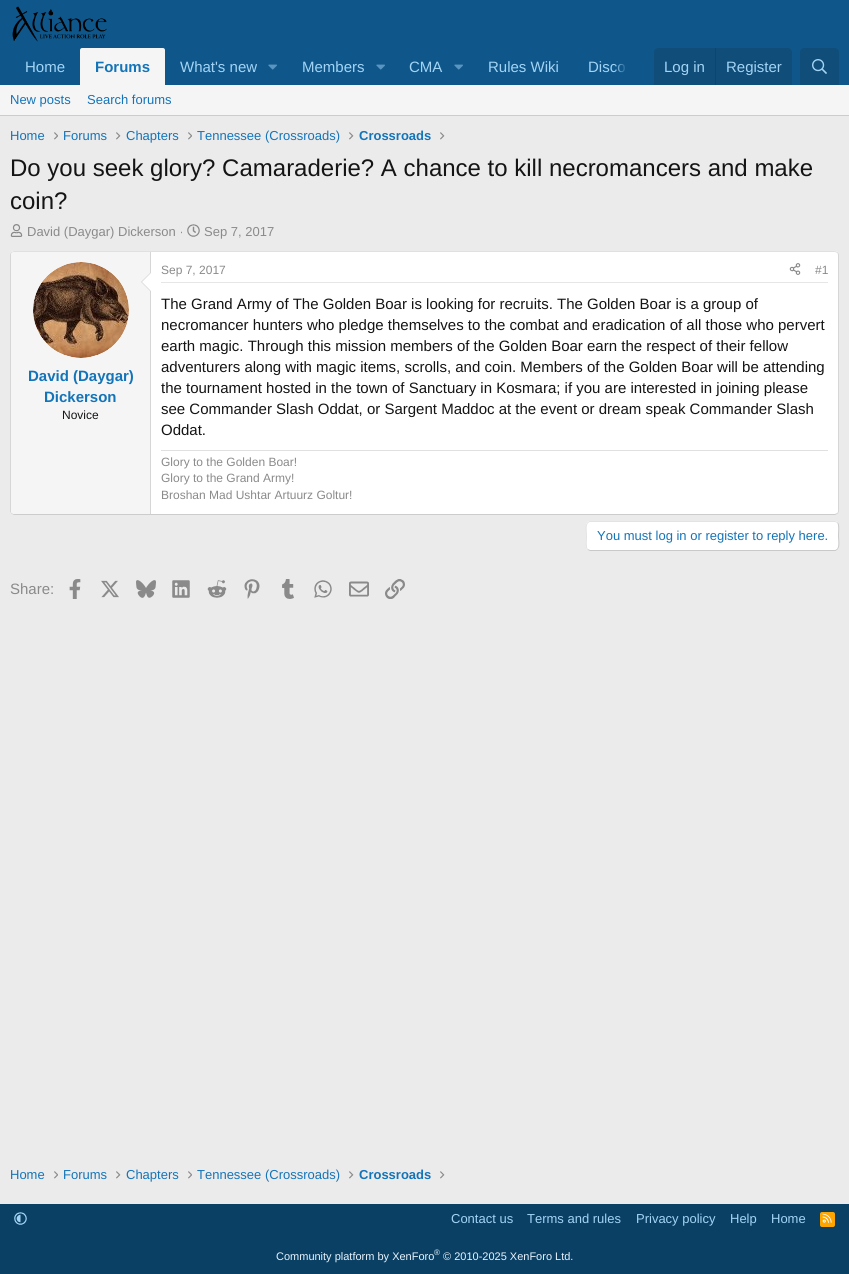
import math
import cairo

surface = cairo.ImageSurface(cairo.Format.RGB24, 849, 1274)
ctx = cairo.Context(surface)
options = cairo.FontOptions()
options.set_hint_metrics(cairo.HintMetrics.OFF)
options.set_hint_style(cairo.HintStyle.NONE)
ctx.set_font_options(options)
ctx.set_miter_limit(4)


def ink(r, g, b):
    ctx.set_source_rgb(r / 255, g / 255, b / 255)


def write(x, y, s, family, size, color, bold=False, italic=False):
    ctx.select_font_face(family, cairo.FontSlant.ITALIC if italic else cairo.FontSlant.NORMAL, cairo.FontWeight.BOLD if bold else cairo.FontWeight.NORMAL)
    ctx.set_font_size(size)
    ink(*color)
    ctx.move_to(x, y)
    ctx.show_text(s)


def block(x, y, w, h, *color):
    ink(*color)
    ctx.rectangle(x, y, w, h)
    ctx.fill()


def round_path(x, y, w, h, r):
    ctx.new_sub_path()
    for i, (u, v) in enumerate([(x + w - r, y + h - r), (x + r, y + h - r), (x + r, y + r), (x + w - r, y + r)]):
        ctx.arc(u, v, r, i * math.pi / 2, (i + 1) * math.pi / 2)
    ctx.close_path()


def paste(path, x, y, w, h):
    ctx.save()
    ctx.set_source_surface(cairo.ImageSurface.create_from_png(path), x, y)
    ctx.rectangle(x, y, w, h)
    ctx.fill()
    ctx.restore()


s1 = dict(family="Liberation Sans", size=15, color=(163, 212, 245))
s2 = dict(family="Liberation Sans", size=15, color=(20, 116, 184), bold=True)
s3 = dict(family="Liberation Sans", size=13, color=(20, 116, 184))
s4 = dict(family="Liberation Sans", size=13, color=(20, 116, 184), bold=True)
s5 = dict(family="Liberation Sans", size=24, color=(20, 20, 20))
s6 = dict(family="Liberation Sans", size=13, color=(138, 138, 138))
s7 = dict(family="Liberation Sans", size=12, color=(20, 20, 20))
s8 = dict(family="Liberation Sans", size=12, color=(138, 138, 138))
s9 = dict(family="Liberation Sans", size=15, color=(20, 20, 20))
s10 = dict(family="Liberation Sans", size=15, color=(138, 138, 138))
s11 = dict(family="Liberation Sans", size=13, color=(163, 212, 245))
s12 = dict(family="Liberation Sans", size=11, color=(232, 244, 252))
s13 = dict(family="Liberation Sans", size=8, color=(232, 244, 252))

ink(235, 235, 235)
ctx.paint()
block(0, 0, 849, 85, 15, 87, 138)
paste("pic1.png", 12, 6, 95, 36)
write(25, 72, "Home", **s1)
ink(245, 245, 245)
ctx.new_path()
ctx.move_to(82, 48)
ctx.line_to(163, 48)
ctx.curve_to(164, 48, 165, 49, 165, 50)
ctx.line_to(165, 85)
ctx.line_to(80, 85)
ctx.line_to(80, 50)
ctx.curve_to(80, 49, 81, 48, 82, 48)
ctx.close_path()
ctx.fill()
write(95, 72, "Forums", **s2)
write(180, 72, "What's new", **s1)
paste("pic2.png", 268, 64, 9, 6)
write(302, 72, "Members", **s1)
paste("pic2.png", 376, 64, 9, 6)
write(409, 72, "CMA", **s1)
paste("pic2.png", 454, 64, 9, 6)
write(488, 72, "Rules Wiki", **s1)
write(588, 72, "Disco", **s1)
gradient = cairo.LinearGradient(614, 67, 654, 67)
gradient.add_color_stop_rgba(0, 0.059, 0.341, 0.541, 0)
gradient.add_color_stop_rgba(0.33, 0.059, 0.341, 0.541, 1)
ctx.set_source(gradient)
ctx.rectangle(614, 63, 12, 10)
ctx.fill()
ink(16, 77, 120)
ctx.new_path()
ctx.move_to(658, 48)
ctx.line_to(788, 48)
ctx.curve_to(790, 48, 792, 50, 792, 52)
ctx.line_to(792, 85)
ctx.line_to(654, 85)
ctx.line_to(654, 52)
ctx.curve_to(654, 50, 656, 48, 658, 48)
ctx.close_path()
ctx.fill()
write(664, 72, "Log in", **s1)
block(715, 48, 1, 37, 17, 68, 105)
write(726, 72, "Register", **s1)
ink(16, 77, 120)
ctx.new_path()
ctx.move_to(804, 48)
ctx.line_to(835, 48)
ctx.curve_to(837, 48, 839, 50, 839, 52)
ctx.line_to(839, 85)
ctx.line_to(800, 85)
ctx.line_to(800, 52)
ctx.curve_to(800, 50, 802, 48, 804, 48)
ctx.close_path()
ctx.fill()
paste("pic3.png", 812, 59, 15, 15)
block(0, 85, 849, 30, 245, 245, 245)
block(0, 115, 849, 1, 204, 204, 204)
write(10, 104, "New posts", **s3)
write(87, 104, "Search forums", **s3)
write(10, 140, "Home", **s3)
paste("pic4.png", 54, 132, 4, 8)
write(63, 140, "Forums", **s3)
paste("pic5.png", 116, 132, 5, 8)
write(126, 140, "Chapters", **s3)
paste("pic4.png", 188, 132, 4, 8)
write(197, 140, "Tennessee (Crossroads)", **s3)
paste("pic5.png", 349, 132, 5, 8)
write(359, 140, "Crossroads", **s4)
paste("pic5.png", 440, 132, 5, 8)
write(10, 176, "Do you seek glory? Camaraderie? A chance to kill necromancers and make", **s5)
write(10, 209, "coin?", **s5)
paste("pic6.png", 10, 224, 13, 13)
write(27, 236, "David (Daygar) Dickerson ·", **s6)
paste("pic7.png", 187, 224, 13, 13)
write(204, 236, "Sep 7, 2017", **s6)
ink(255, 255, 255)
round_path(10, 251, 829, 264, 4)
ctx.fill()
ctx.new_path()
ctx.move_to(11.5, 252.5)
ctx.line_to(14, 251.5)
ctx.line_to(835, 251.5)
ctx.line_to(837.5, 252.5)
ink(224, 224, 224)
ctx.set_line_width(1)
ctx.stroke()
ctx.new_path()
ctx.move_to(837.5, 252.5)
ctx.curve_to(838, 253, 838.5, 254, 838.5, 255)
ctx.line_to(838.5, 511)
ctx.curve_to(838.5, 512, 838, 513, 837.5, 513.5)
ink(214, 214, 214)
ctx.stroke()
ctx.new_path()
ctx.move_to(837.5, 513.5)
ctx.line_to(835, 514.5)
ctx.line_to(14, 514.5)
ctx.line_to(11.5, 513.5)
ink(204, 204, 204)
ctx.stroke()
ctx.new_path()
ctx.move_to(11.5, 513.5)
ctx.curve_to(11, 513, 10.5, 512, 10.5, 511)
ctx.line_to(10.5, 255)
ctx.curve_to(10.5, 254, 11, 253, 11.5, 252.5)
ink(214, 214, 214)
ctx.stroke()
ink(245, 245, 245)
ctx.new_path()
ctx.move_to(14, 252)
ctx.line_to(151, 252)
ctx.line_to(151, 514)
ctx.line_to(14, 514)
ctx.curve_to(12.5, 514, 11, 512.5, 11, 511)
ctx.line_to(11, 255)
ctx.curve_to(11, 253.5, 12.5, 252, 14, 252)
ctx.close_path()
ctx.fill()
block(150, 252, 1, 262, 214, 214, 214)
ink(255, 255, 255)
ctx.arc(81, 310, 48, 0, 2 * math.pi)
ctx.fill()
paste("pic8.png", 33, 262, 96, 96)
ink(214, 214, 214)
ctx.new_path()
ctx.move_to(151, 272)
ctx.line_to(151, 292)
ctx.line_to(141, 282)
ctx.close_path()
ctx.fill()
ink(255, 255, 255)
ctx.new_path()
ctx.move_to(151, 273)
ctx.line_to(151, 291)
ctx.line_to(142, 282)
ctx.close_path()
ctx.fill()
write(28, 381, "David (Daygar)", **s2)
write(44, 402, "Dickerson", **s2)
write(62, 419, "Novice", **s7)
block(161, 282, 667, 1, 230, 230, 230)
write(161, 274, "Sep 7, 2017", **s8)
paste("pic9.png", 789, 263, 12, 12)
write(815, 274, "#1", **s8)
write(161, 309, "The Grand Army of The Golden Boar is looking for recruits. The Golden Boar is a group of", **s9)
write(161, 330, "necromancer hunters who pledge themselves to the combat and eradication of all those who pervert", **s9)
write(161, 351, "earth magic. Through this mission members of the Golden Boar earn the respect of their fellow", **s9)
write(161, 372, "adventurers along with magic items, scrolls, and coin. Members of the Golden Boar will be attending", **s9)
write(161, 393, "the tournament hosted in the town of Sanctuary in Kosmara; if you are interested in joining please", **s9)
write(161, 414, "see Commander Slash Oddat, or Sargent Maddoc at the event or dream speak Commander Slash", **s9)
write(161, 435, "Oddat.", **s9)
block(161, 450, 667, 1, 224, 224, 224)
write(161, 466, "Glory to the Golden Boar!", **s8)
write(161, 482, "Glory to the Grand Army!", **s8)
write(161, 499, "Broshan Mad Ushtar Artuurz Goltur!", **s8)
ink(255, 255, 255)
round_path(586, 521, 253, 30, 4)
ctx.fill()
ctx.new_path()
ctx.move_to(837.5, 522.5)
ctx.curve_to(839.5, 524.5, 838.5, 533, 838.5, 536)
ctx.curve_to(838.5, 539, 840, 547.5, 837, 549.5)
ctx.line_to(835.5, 550.5)
ctx.line_to(590, 550.5)
ctx.line_to(587.5, 549.5)
ink(201, 201, 201)
ctx.stroke()
ctx.new_path()
ctx.move_to(587.5, 549.5)
ctx.curve_to(585.5, 547.5, 586.5, 539, 586.5, 536)
ctx.curve_to(586.5, 533, 585, 524.5, 588, 522.5)
ctx.line_to(589.5, 521.5)
ctx.line_to(835, 521.5)
ctx.line_to(837.5, 522.5)
ink(227, 227, 227)
ctx.stroke()
write(597, 540, "You must log in or register to reply here.", **s3)
write(10, 594, "Share:", **s10)
paste("pic10.png", 69, 579, 12, 20)
paste("pic11.png", 101, 580, 18, 18)
paste("pic12.png", 136, 580, 20, 18)
paste("pic13.png", 172, 580, 18, 18)
paste("pic14.png", 207, 580, 20, 18)
paste("pic15.png", 244, 579, 16, 20)
paste("pic16.png", 282, 579, 12, 20)
paste("pic17.png", 314, 580, 18, 18)
paste("pic18.png", 349, 581, 20, 16)
paste("pic19.png", 385, 579, 20, 20)
write(10, 1179, "Home", **s3)
paste("pic4.png", 54, 1171, 4, 8)
write(63, 1179, "Forums", **s3)
paste("pic5.png", 116, 1171, 5, 8)
write(126, 1179, "Chapters", **s3)
paste("pic4.png", 188, 1171, 4, 8)
write(197, 1179, "Tennessee (Crossroads)", **s3)
paste("pic5.png", 349, 1171, 5, 8)
write(359, 1179, "Crossroads", **s4)
paste("pic5.png", 440, 1171, 5, 8)
block(0, 1204, 849, 70, 11, 64, 101)
paste("pic20.png", 14, 1212, 13, 13)
write(451, 1223, "Contact us", **s11)
write(527, 1223, "Terms and rules", **s11)
write(636, 1223, "Privacy policy", **s11)
write(730, 1223, "Help", **s11)
write(771, 1223, "Home", **s11)
ink(255, 165, 0)
round_path(820, 1212, 15, 15, 2)
ctx.fill()
paste("pic21.png", 822, 1213, 10, 10)
write(276, 1260, "Community platform by XenForo", **s12)
write(434, 1255, "®", **s13)
write(443, 1260, "© 2010-2025 XenForo Ltd.", **s12)
surface.write_to_png("screenshot.png")
